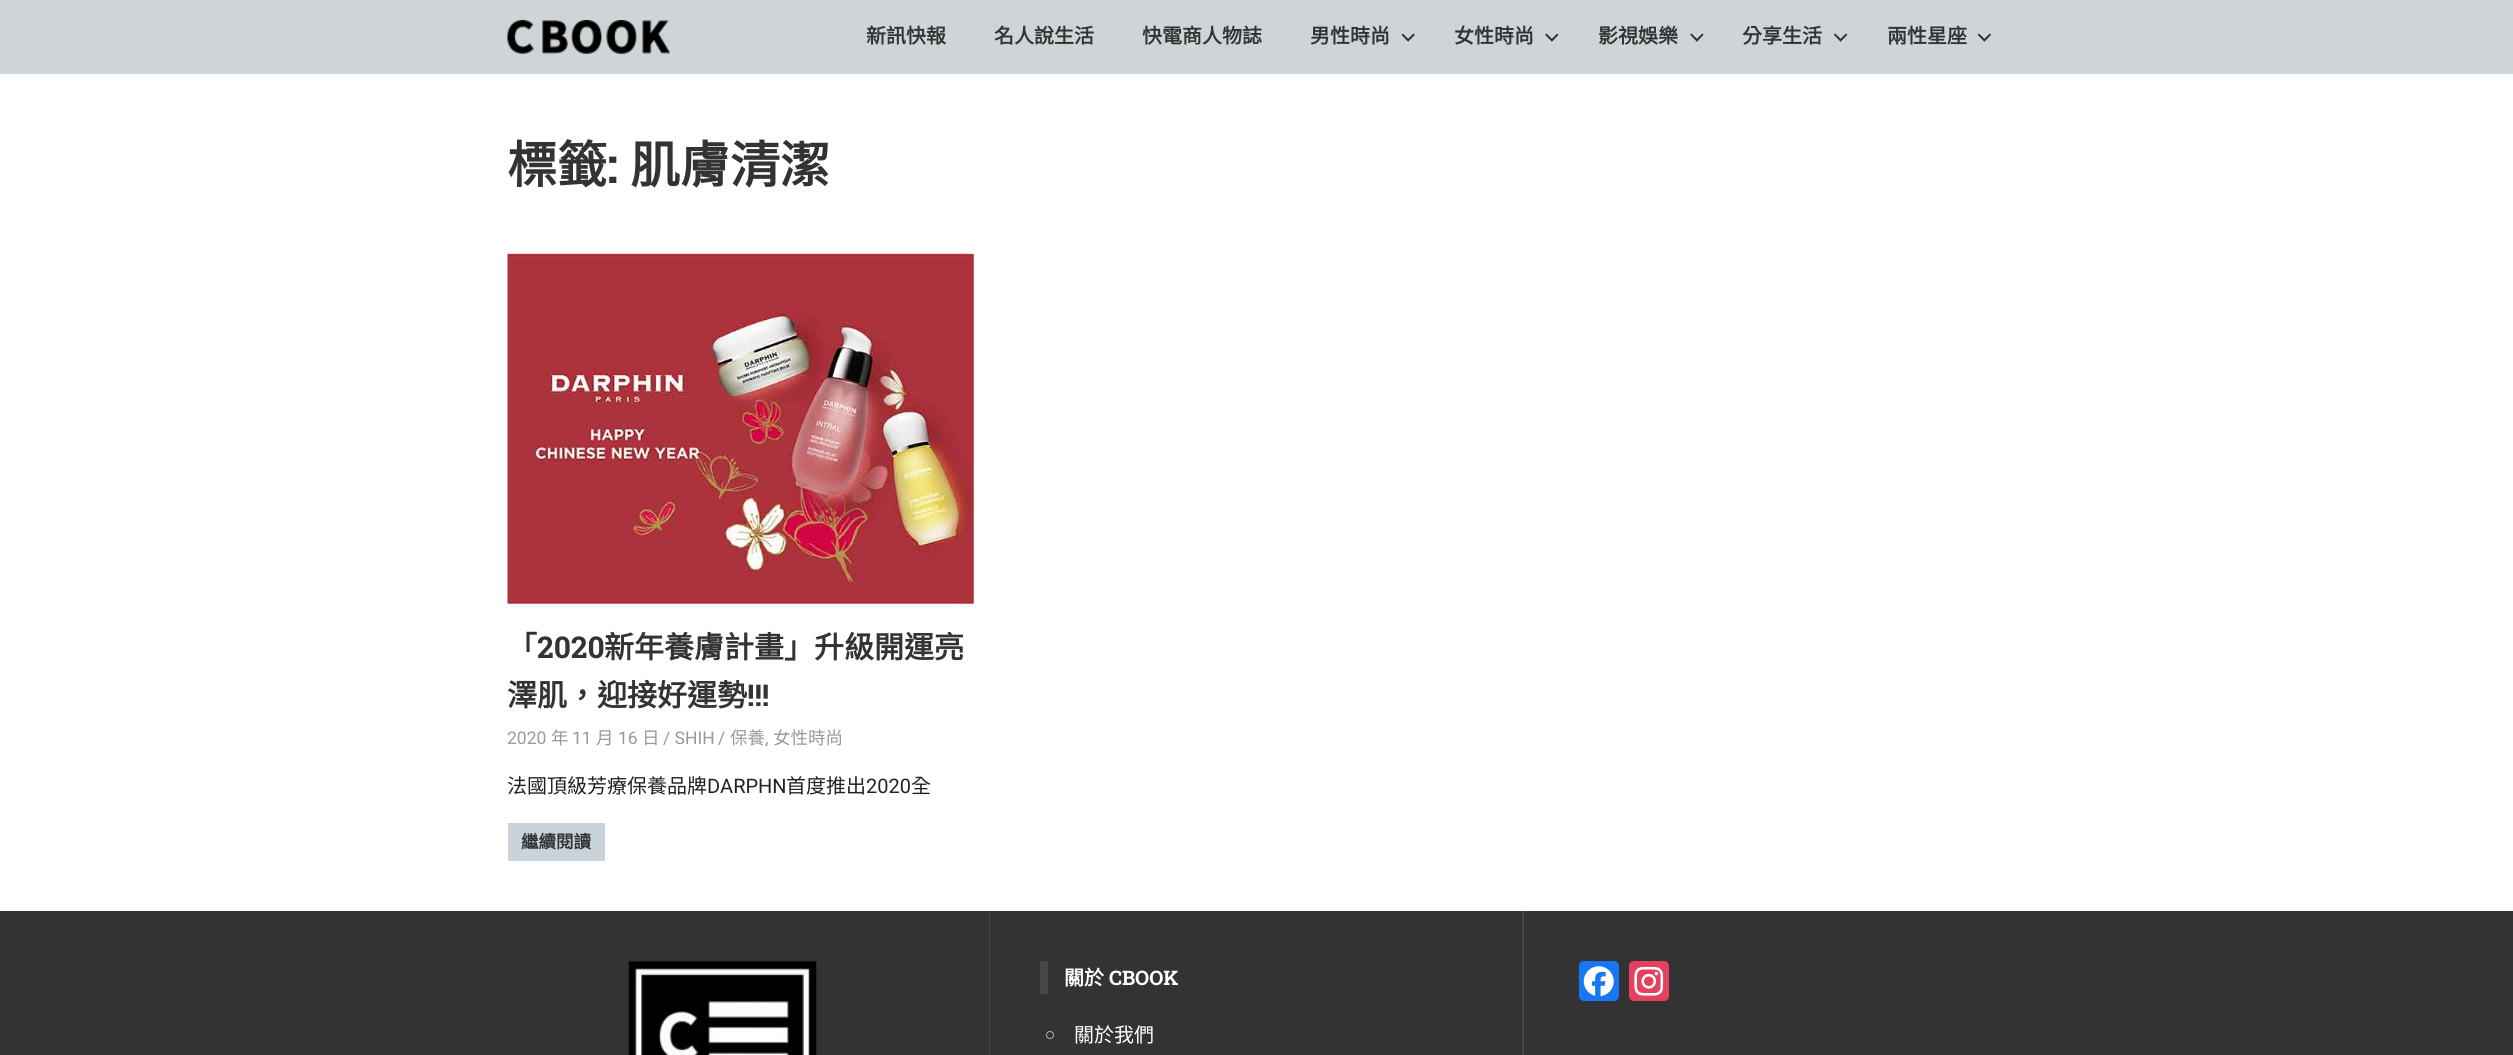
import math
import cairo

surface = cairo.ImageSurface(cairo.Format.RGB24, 2513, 1055)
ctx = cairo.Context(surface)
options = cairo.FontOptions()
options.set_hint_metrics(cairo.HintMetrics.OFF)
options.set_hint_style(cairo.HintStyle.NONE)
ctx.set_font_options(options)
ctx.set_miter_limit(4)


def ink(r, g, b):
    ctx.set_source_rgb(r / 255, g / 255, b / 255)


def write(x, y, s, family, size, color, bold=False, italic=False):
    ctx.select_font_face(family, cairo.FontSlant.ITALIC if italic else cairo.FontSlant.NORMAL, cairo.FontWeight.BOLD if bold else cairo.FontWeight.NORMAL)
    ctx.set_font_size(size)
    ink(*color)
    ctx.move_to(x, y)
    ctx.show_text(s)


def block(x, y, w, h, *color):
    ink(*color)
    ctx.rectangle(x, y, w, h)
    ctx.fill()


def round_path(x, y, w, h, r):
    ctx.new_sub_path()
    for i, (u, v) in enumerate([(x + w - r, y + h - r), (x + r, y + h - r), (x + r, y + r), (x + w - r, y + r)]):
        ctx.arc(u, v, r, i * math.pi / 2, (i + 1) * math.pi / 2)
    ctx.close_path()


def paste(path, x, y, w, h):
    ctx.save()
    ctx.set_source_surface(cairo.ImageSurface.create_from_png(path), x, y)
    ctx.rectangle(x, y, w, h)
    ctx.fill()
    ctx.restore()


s1 = dict(family="Noto Sans CJK TC", size=20, color=(51, 51, 51), bold=True)
s2 = dict(family="Noto Sans CJK TC", size=50, color=(51, 51, 51), bold=True)
s3 = dict(family="Roboto Slab", size=50, color=(51, 51, 51), bold=True)
s4 = dict(family="Noto Sans CJK TC", size=30, color=(51, 51, 51), bold=True)
s5 = dict(family="Roboto Slab", size=30, color=(51, 51, 51), bold=True)
s6 = dict(family="Roboto", size=17.5, color=(153, 153, 153))
s7 = dict(family="Noto Sans CJK TC", size=17.5, color=(153, 153, 153))
s8 = dict(family="Noto Sans CJK TC", size=20, color=(34, 34, 34))
s9 = dict(family="Roboto", size=20, color=(34, 34, 34))
s10 = dict(family="Noto Sans CJK TC", size=17.5, color=(51, 51, 51), bold=True)
s11 = dict(family="Noto Sans CJK TC", size=20, color=(255, 255, 255), bold=True)
s12 = dict(family="Roboto Slab", size=20, color=(255, 255, 255), bold=True)
s13 = dict(family="Noto Sans CJK TC", size=20, color=(255, 255, 255))

ink(255, 255, 255)
ctx.paint()
block(0, 0, 2513, 74, 207, 212, 215)
paste("pic1.png", 507, 20, 163, 34)
write(866, 43, "新訊快報", **s1)
write(994, 43, "名人說生活", **s1)
write(1142, 43, "快電商人物誌", **s1)
write(1310, 43, "男性時尚", **s1)
paste("pic2.png", 1401, 33, 14, 9)
write(1454, 43, "女性時尚", **s1)
paste("pic3.png", 1545, 33, 14, 9)
write(1598, 43, "影視娛樂", **s1)
paste("pic3.png", 1690, 33, 14, 9)
write(1742, 43, "分享生活", **s1)
paste("pic4.png", 1834, 33, 14, 9)
write(1887, 43, "兩性星座", **s1)
paste("pic5.png", 1977, 33, 14, 9)
write(507, 183, "標籤", **s2)
write(607, 183, ":", **s3)
write(630, 183, "肌膚清潔", **s2)
paste("pic6.png", 507, 253, 467, 351)
write(507, 658, "「", **s4)
write(537, 658, "2020", **s5)
write(604, 658, "新年養膚計畫」升級開運亮", **s4)
write(507, 706, "澤肌，迎接好運勢", **s4)
write(747, 706, "!!!", **s5)
write(507, 744, "2020", **s6)
write(551, 744, "年", **s7)
write(572, 744, "11", **s6)
write(596, 744, "月", **s7)
write(618, 744, "16", **s6)
write(642, 744, "日", **s7)
write(663, 744, "/ SHIH", **s6)
write(718, 744, "/", **s6)
write(730, 744, "保養", **s7)
write(765, 744, ",", **s6)
write(773, 744, "女性時尚", **s7)
write(507, 793, "法國頂級芳療保養品牌", **s8)
write(707, 793, "DARPHN", **s9)
write(786, 793, "首度推出", **s8)
write(866, 793, "2020", **s9)
write(911, 793, "全", **s8)
block(508, 823, 97, 38, 202, 211, 218)
write(521, 848, "繼續閱讀", **s10)
block(0, 911, 2513, 144, 51, 51, 51)
ink(71, 71, 71)
ctx.new_path()
ctx.move_to(990, 911)
ctx.line_to(990, 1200)
ctx.line_to(989, 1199)
ctx.line_to(989, 911)
ctx.close_path()
ctx.fill()
paste("pic7.png", 628, 961, 189, 94)
ctx.new_path()
ctx.move_to(1524, 911)
ctx.line_to(1524, 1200)
ctx.line_to(1522, 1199)
ctx.line_to(1522, 911)
ctx.close_path()
ctx.fill()
block(1040, 961, 8, 33, 71, 71, 71)
write(1064, 985, "關於", **s11)
write(1109, 985, "CBOOK", **s12)
ctx.new_path()
ctx.arc(1050, 1035, 3.5, 0, 2 * math.pi)
ink(173, 173, 173)
ctx.set_line_width(1)
ctx.stroke()
write(1074, 1042, "關於我們", **s13)
ink(24, 119, 242)
round_path(1579, 961, 40, 40, 5)
ctx.fill()
paste("pic8.png", 1583, 966, 31, 31)
ink(228, 64, 95)
round_path(1629, 961, 40, 40, 5)
ctx.fill()
paste("pic9.png", 1634, 966, 30, 30)
surface.write_to_png("screenshot.png")
